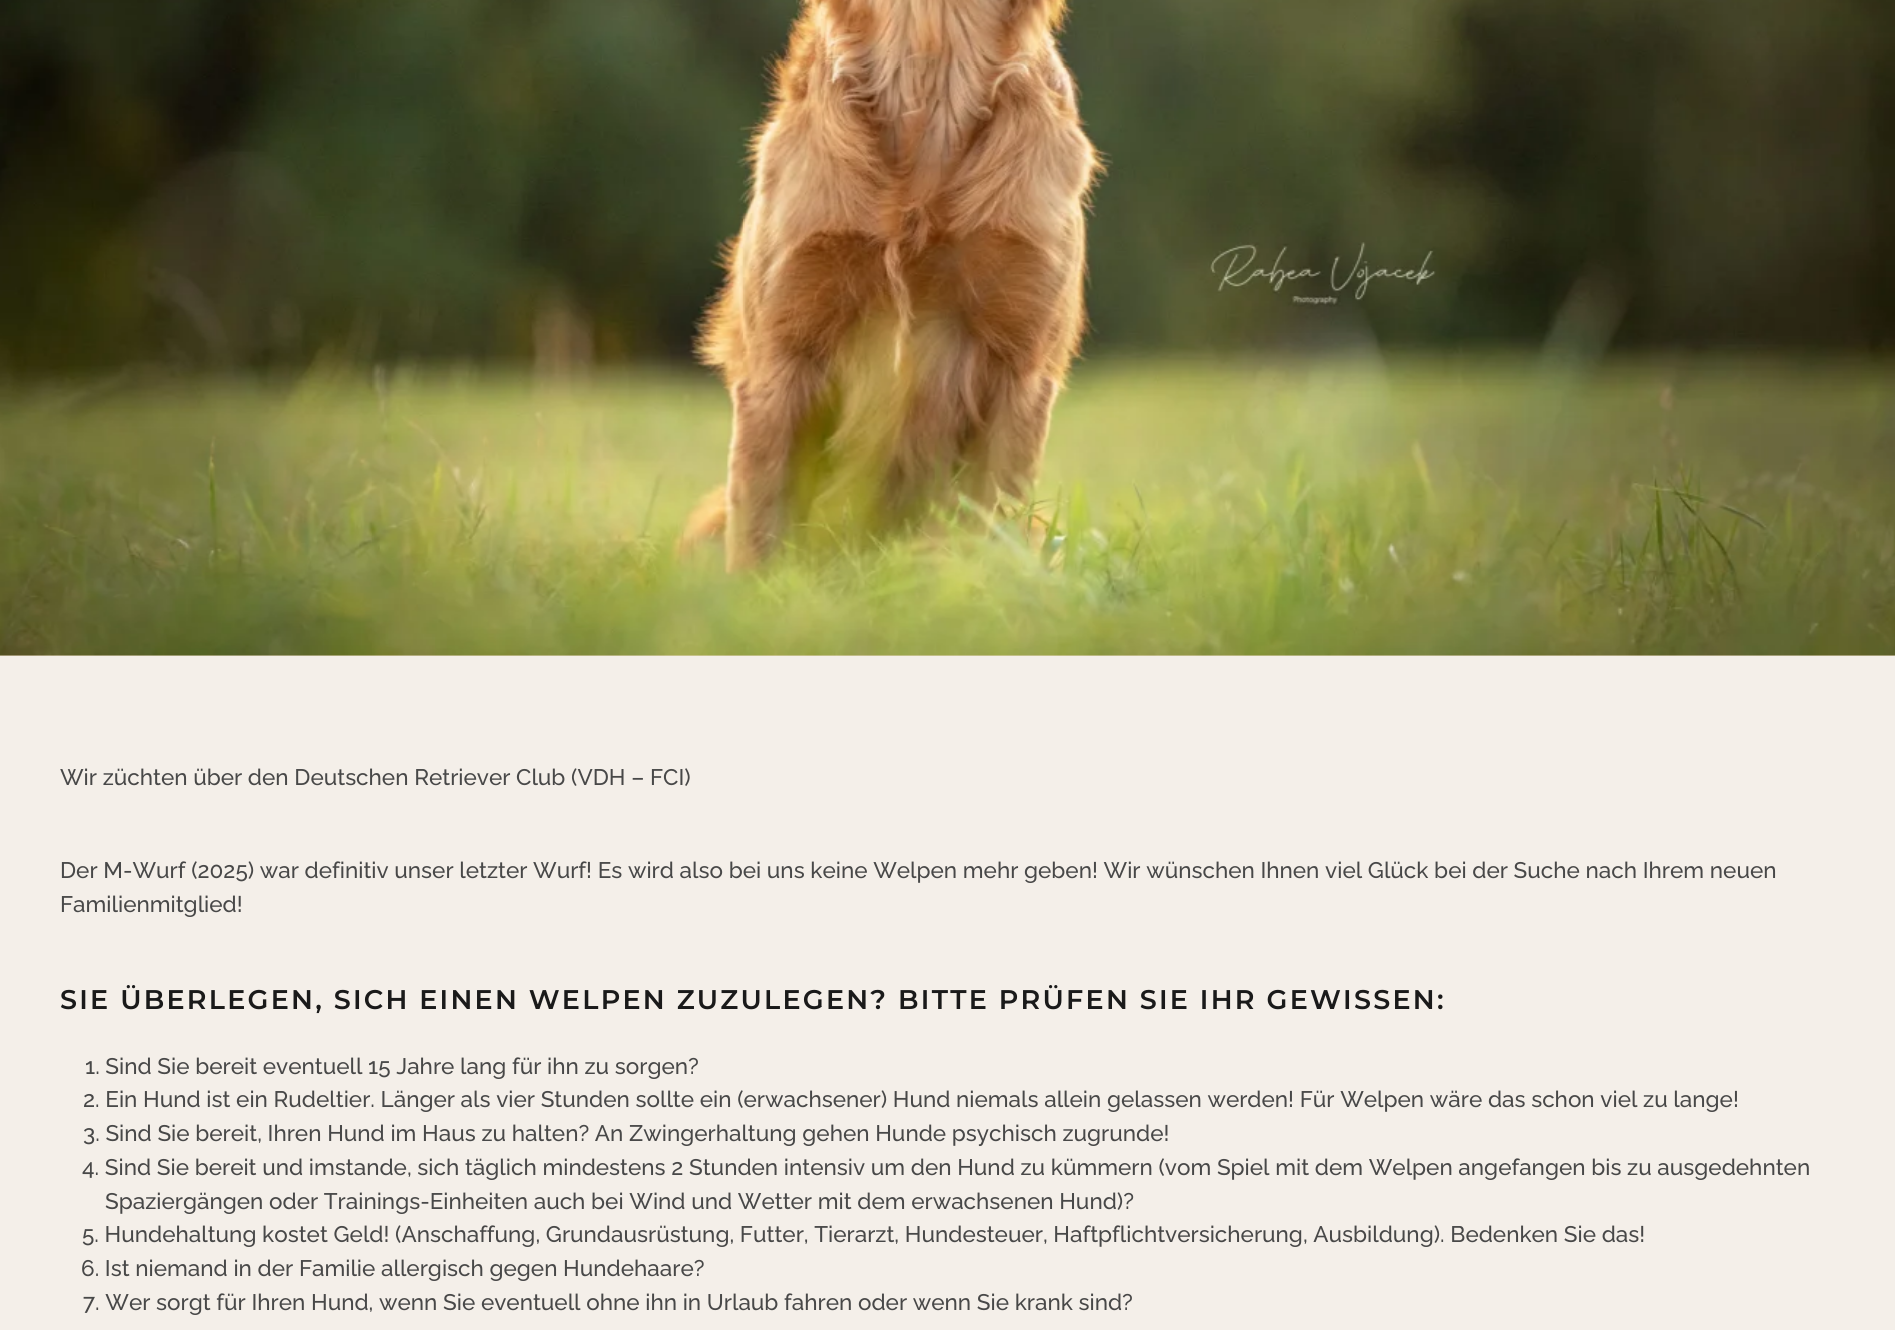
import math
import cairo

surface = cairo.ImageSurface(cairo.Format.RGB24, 1895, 1330)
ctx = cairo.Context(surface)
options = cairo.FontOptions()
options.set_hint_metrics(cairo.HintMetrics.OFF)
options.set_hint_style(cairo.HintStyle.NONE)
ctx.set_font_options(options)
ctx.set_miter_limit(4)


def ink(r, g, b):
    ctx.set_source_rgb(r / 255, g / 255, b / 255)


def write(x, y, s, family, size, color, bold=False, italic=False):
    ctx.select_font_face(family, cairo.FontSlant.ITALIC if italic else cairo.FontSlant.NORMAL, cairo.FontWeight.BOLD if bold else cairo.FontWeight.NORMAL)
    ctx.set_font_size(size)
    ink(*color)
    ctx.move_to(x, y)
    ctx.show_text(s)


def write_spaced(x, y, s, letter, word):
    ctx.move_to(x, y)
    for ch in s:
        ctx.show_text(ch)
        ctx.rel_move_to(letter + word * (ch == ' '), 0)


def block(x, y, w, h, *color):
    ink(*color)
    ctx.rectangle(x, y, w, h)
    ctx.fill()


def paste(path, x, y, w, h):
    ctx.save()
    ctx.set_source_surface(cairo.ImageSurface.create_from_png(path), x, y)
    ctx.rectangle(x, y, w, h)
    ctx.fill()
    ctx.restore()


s1 = dict(family="Raleway Thin", size=22.5, color=(72, 72, 72))

ink(232, 217, 194)
ctx.paint()
paste("pic1.png", 0, 0, 1895, 656)
block(0, 656, 1895, 674, 244, 239, 233)
write(60, 785, "Wir züchten über den Deutschen Retriever Club (VDH – FCI)", **s1)
write(60, 878, "Der M-Wurf (2025) war definitiv unser letzter Wurf! Es wird also bei uns keine Welpen mehr geben! Wir wünschen Ihnen viel Glück bei der Suche nach Ihrem neuen", **s1)
write(60, 912, "Familienmitglied!", **s1)
ctx.select_font_face("Montserrat Thin")
ctx.set_font_size(27)
ink(26, 26, 26)
write_spaced(60, 1009, "SIE ÜBERLEGEN, SICH EINEN WELPEN ZUZULEGEN? BITTE PRÜFEN SIE IHR GEWISSEN:", 2.25, 0)
write(85, 1074, "1. Sind Sie bereit eventuell 15 Jahre lang für ihn zu sorgen?", **s1)
write(83, 1107, "2. Ein Hund ist ein Rudeltier. Länger als vier Stunden sollte ein (erwachsener) Hund niemals allein gelassen werden! Für Welpen wäre das schon viel zu lange!", **s1)
write(83, 1141, "3. Sind Sie bereit, Ihren Hund im Haus zu halten? An Zwingerhaltung gehen Hunde psychisch zugrunde!", **s1)
write(82, 1175, "4. Sind Sie bereit und imstande, sich täglich mindestens 2 Stunden intensiv um den Hund zu kümmern (vom Spiel mit dem Welpen angefangen bis zu ausgedehnten", **s1)
write(105, 1209, "Spaziergängen oder Trainings-Einheiten auch bei Wind und Wetter mit dem erwachsenen Hund)?", **s1)
write(82, 1242, "5. Hundehaltung kostet Geld! (Anschaffung, Grundausrüstung, Futter, Tierarzt, Hundesteuer, Haftpflichtversicherung, Ausbildung). Bedenken Sie das!", **s1)
write(81, 1276, "6. Ist niemand in der Familie allergisch gegen Hundehaare?", **s1)
write(83, 1310, "7. Wer sorgt für Ihren Hund, wenn Sie eventuell ohne ihn in Urlaub fahren oder wenn Sie krank sind?", **s1)
surface.write_to_png("screenshot.png")
